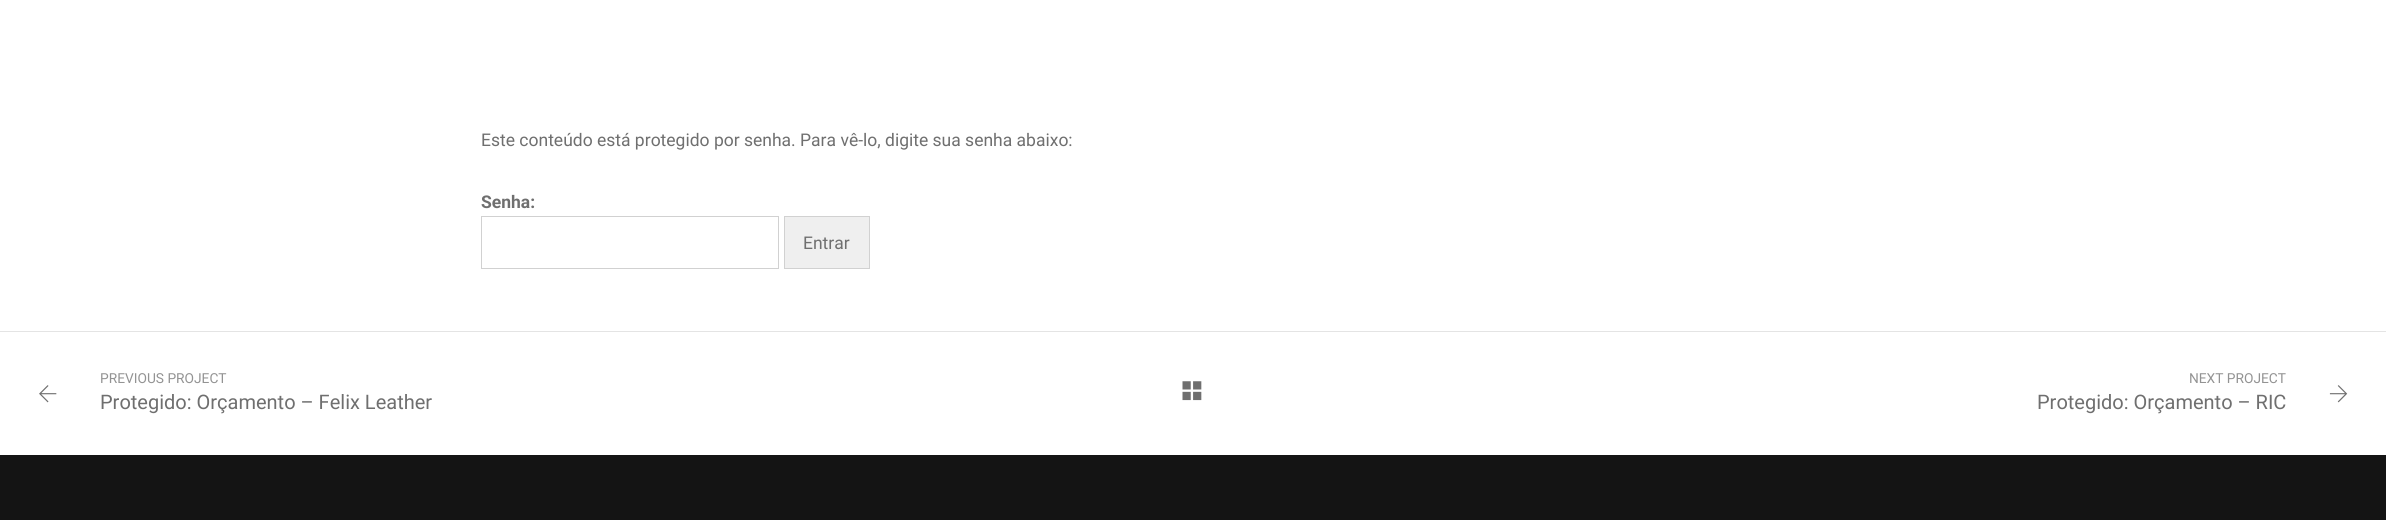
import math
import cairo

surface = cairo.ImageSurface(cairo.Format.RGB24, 2386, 520)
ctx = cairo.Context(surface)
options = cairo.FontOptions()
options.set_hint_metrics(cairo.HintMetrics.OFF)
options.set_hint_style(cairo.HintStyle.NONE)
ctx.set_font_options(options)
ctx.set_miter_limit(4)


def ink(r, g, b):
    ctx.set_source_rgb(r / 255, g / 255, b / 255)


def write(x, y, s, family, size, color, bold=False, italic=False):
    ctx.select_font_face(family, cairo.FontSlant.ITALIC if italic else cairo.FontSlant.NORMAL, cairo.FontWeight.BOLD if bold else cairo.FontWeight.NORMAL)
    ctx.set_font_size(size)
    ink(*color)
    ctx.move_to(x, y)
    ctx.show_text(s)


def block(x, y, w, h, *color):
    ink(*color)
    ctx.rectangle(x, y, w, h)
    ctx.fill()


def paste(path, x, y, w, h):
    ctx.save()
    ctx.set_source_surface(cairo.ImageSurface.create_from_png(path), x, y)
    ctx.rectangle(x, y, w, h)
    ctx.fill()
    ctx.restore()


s1 = dict(family="Roboto", size=17.5, color=(111, 111, 111))
s2 = dict(family="Roboto", size=17.5, color=(111, 111, 111), bold=True)
s3 = dict(family="Roboto", size=13.75, color=(147, 147, 147))
s4 = dict(family="Roboto", size=20, color=(111, 111, 111))

ink(255, 255, 255)
ctx.paint()
write(481, 146, "Este conteúdo está protegido por senha. Para vê-lo, digite sua senha abaixo:", **s1)
write(481, 208, "Senha:", **s2)
ctx.rectangle(481.5, 216.5, 297, 52)
ink(209, 209, 209)
ctx.set_line_width(1)
ctx.stroke()
ink(239, 239, 239)
ctx.rectangle(784.5, 216.5, 85, 52)
ctx.fill_preserve()
ink(209, 209, 209)
ctx.stroke()
write(803, 249, "Entrar", **s1)
block(0, 331, 2386, 1, 228, 228, 228)
write(100, 383, "PREVIOUS PROJECT", **s3)
paste("pic1.png", 39, 385, 18, 18)
write(100, 409, "Protegido: Orçamento – Felix Leather", **s4)
paste("pic2.png", 1182, 381, 20, 20)
write(2189, 383, "NEXT PROJECT", **s3)
write(2037, 409, "Protegido: Orçamento – RIC", **s4)
paste("pic3.png", 2329, 385, 19, 18)
block(0, 455, 2386, 65, 20, 20, 20)
surface.write_to_png("screenshot.png")
